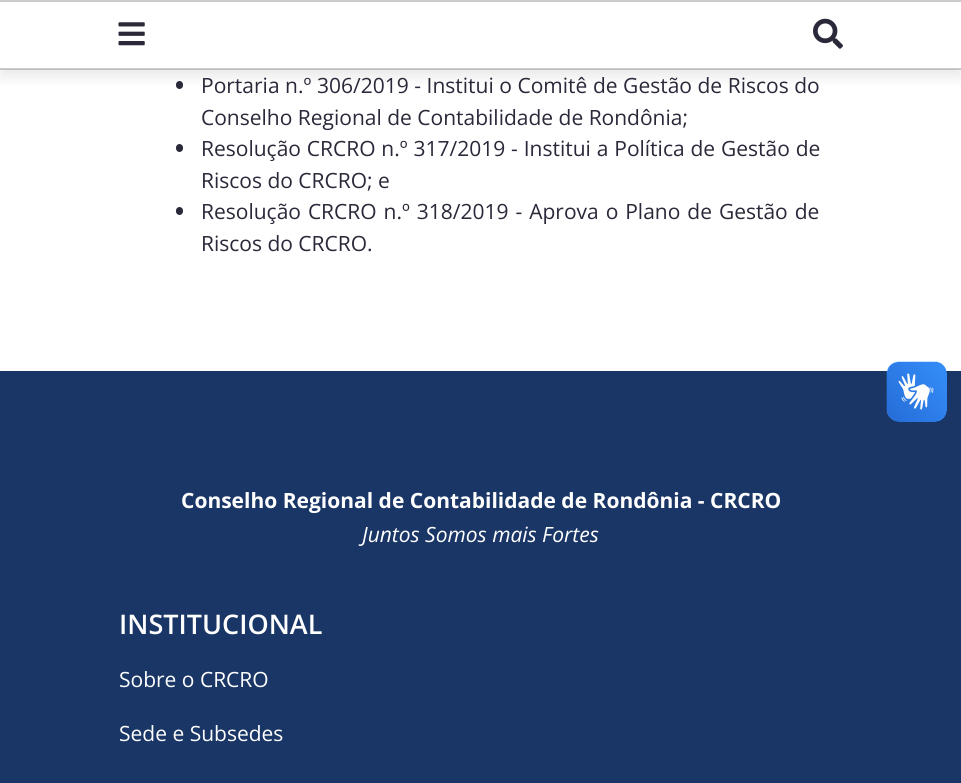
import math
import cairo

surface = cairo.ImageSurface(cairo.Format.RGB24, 961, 783)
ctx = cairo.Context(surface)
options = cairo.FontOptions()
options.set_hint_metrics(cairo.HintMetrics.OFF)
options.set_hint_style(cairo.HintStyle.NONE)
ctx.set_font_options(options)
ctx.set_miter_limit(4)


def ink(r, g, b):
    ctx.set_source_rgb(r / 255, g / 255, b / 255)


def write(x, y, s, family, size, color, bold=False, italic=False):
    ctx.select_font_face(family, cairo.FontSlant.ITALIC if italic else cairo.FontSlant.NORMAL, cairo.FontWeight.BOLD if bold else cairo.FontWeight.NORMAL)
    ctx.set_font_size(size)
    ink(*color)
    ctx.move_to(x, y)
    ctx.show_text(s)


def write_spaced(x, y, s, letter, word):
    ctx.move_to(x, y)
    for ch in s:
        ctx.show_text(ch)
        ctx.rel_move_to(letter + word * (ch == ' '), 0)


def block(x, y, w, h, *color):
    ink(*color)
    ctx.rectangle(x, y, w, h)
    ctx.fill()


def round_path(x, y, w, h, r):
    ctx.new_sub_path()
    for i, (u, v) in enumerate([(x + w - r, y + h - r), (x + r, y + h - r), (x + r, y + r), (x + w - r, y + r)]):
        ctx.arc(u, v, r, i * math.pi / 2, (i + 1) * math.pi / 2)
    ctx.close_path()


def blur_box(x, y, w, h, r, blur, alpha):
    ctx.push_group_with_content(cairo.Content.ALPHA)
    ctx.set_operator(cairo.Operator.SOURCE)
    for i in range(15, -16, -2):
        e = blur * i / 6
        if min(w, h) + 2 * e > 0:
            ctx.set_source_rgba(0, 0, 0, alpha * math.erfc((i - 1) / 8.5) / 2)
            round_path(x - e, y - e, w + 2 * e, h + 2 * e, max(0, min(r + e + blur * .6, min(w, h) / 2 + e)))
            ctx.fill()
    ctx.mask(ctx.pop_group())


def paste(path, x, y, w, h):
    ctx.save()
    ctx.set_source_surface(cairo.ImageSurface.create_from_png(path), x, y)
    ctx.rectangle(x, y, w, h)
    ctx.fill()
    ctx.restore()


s1 = dict(family="Open Sans", size=21, color=(41, 41, 58))
s2 = dict(family="Open Sans", size=21, color=(255, 255, 255), bold=True)
s3 = dict(family="Open Sans", size=21, color=(255, 255, 255), italic=True)
s4 = dict(family="Open Sans SemiBold", size=27, color=(255, 255, 255))
s5 = dict(family="Open Sans", size=21, color=(255, 255, 255))

ink(255, 255, 255)
ctx.paint()
ink(41, 41, 58)
round_path(176, 81, 7, 8, 3.5)
ctx.fill()
ink(0, 0, 0)
blur_box(0, 9, 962, 69, 0, 6, 0.08)
block(0, 2, 961, 67, 255, 255, 255)
block(0, 0, 961, 2, 204, 204, 204)
ctx.set_source_rgba(0, 0, 0, 0.2)
ctx.rectangle(0, 68, 961, 2)
ctx.fill()
paste("pic1.png", 118, 22, 27, 24)
paste("pic2.png", 813, 18, 30, 31)
ctx.select_font_face("Open Sans")
ctx.set_font_size(21)
ink(41, 41, 58)
write_spaced(201, 93, "Portaria n.º 306/2019 - Institui o Comitê de Gestão de Riscos do", 0, 0.1)
write(201, 125, "Conselho Regional de Contabilidade de Rondônia;", **s1)
round_path(176, 144, 7, 8, 3.5)
ctx.fill()
write_spaced(201, 156, "Resolução CRCRO n.º 317/2019 - Institui a Política de Gestão de", 0, 0.4)
write(201, 188, "Riscos do CRCRO; e", **s1)
round_path(176, 207, 7, 8, 3.5)
ctx.fill()
write_spaced(201, 219, "Resolução CRCRO n.º 318/2019 - Aprova o Plano de Gestão de", 0, 1.5)
write(201, 251, "Riscos do CRCRO.", **s1)
block(0, 371, 961, 412, 26, 54, 102)
paste("pic3.png", 886, 361, 61, 61)
paste("pic4.png", 887, 362, 60, 60)
write(181, 508, "Conselho Regional de Contabilidade de Rondônia - CRCRO", **s2)
write(362, 542, "Juntos Somos mais Fortes", **s3)
write(119, 634, "INSTITUCIONAL", **s4)
write(119, 687, "Sobre o CRCRO", **s5)
write(119, 741, "Sede e Subsedes", **s5)
surface.write_to_png("screenshot.png")
